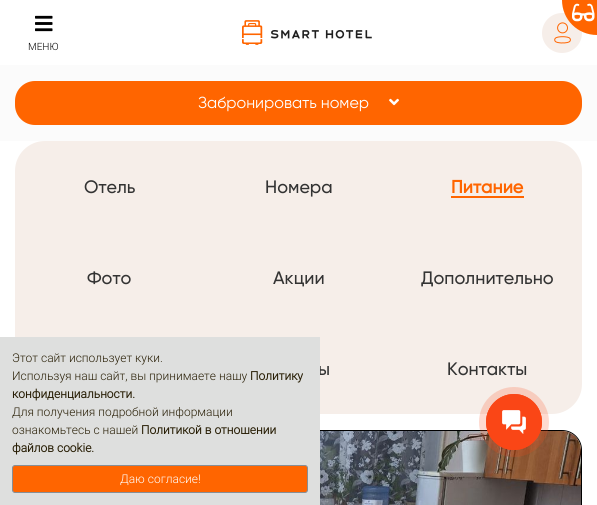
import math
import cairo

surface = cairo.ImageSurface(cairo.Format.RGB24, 597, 505)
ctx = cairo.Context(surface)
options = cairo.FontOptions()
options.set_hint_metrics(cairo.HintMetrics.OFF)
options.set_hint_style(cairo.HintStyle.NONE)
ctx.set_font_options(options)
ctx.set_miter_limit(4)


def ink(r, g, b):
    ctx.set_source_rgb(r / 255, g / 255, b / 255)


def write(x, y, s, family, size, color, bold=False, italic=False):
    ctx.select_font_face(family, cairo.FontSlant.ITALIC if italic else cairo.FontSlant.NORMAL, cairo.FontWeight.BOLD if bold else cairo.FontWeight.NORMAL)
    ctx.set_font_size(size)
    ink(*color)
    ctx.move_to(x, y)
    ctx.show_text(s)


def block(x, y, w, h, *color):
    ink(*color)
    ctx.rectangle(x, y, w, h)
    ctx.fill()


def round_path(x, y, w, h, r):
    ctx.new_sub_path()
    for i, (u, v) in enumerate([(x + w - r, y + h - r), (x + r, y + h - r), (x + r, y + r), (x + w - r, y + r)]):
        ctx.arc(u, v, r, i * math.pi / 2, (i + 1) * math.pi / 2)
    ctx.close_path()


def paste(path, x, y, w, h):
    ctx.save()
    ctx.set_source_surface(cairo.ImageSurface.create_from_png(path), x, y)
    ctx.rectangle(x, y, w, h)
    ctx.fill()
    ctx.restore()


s1 = dict(family="Roboto Light", size=10, color=(0, 0, 0))
s2 = dict(family="Gilroy", size=16, color=(255, 255, 255))
s3 = dict(family="Gilroy Medium", size=18, color=(51, 51, 51))
s4 = dict(family="Gilroy", size=18, color=(255, 101, 0), bold=True)
s5 = dict(family="Roboto Light", size=12, color=(40, 30, 5))
s6 = dict(family="Roboto", size=12, color=(40, 30, 5), bold=True)
s7 = dict(family="Roboto Light", size=12, color=(255, 255, 255))

ink(255, 255, 255)
ctx.paint()
ink(246, 238, 233)
ctx.arc(562, 33, 20, 0, 2 * math.pi)
ctx.fill()
paste("pic3.png", 554, 22, 17, 22)
ink(255, 101, 0)
ctx.new_path()
ctx.move_to(562, 0)
ctx.line_to(597, 0)
ctx.line_to(597, 35)
ctx.curve_to(577.5, 35, 562, 19.5, 562, 0)
ctx.close_path()
ctx.fill()
paste("pic1.png", 572, 3, 23, 19)
block(0, 65, 597, 76, 251, 251, 251)
paste("pic2.png", 242, 20, 130, 25)
paste("pic4.png", 35, 15, 18, 17)
write(28, 50, "МЕНЮ", **s1)
ink(255, 101, 0)
round_path(15, 81, 567, 44, 20)
ctx.fill()
write(198, 108, "Забронировать номер", **s2)
paste("pic5.png", 389, 98, 10, 8)
ink(246, 238, 233)
round_path(15, 141, 567, 273, 30)
ctx.fill()
write(84, 193, "Отель", **s3)
write(265, 193, "Номера", **s3)
write(451, 193, "Питание", **s4)
block(451, 196, 73, 2, 255, 101, 0)
write(87, 284, "Фото", **s3)
write(273, 284, "Акции", **s3)
write(421, 284, "Дополнительно", **s3)
write(318, 375, "ы", **s3)
write(447, 375, "Контакты", **s3)
round_path(15.5, 430.5, 566, 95, 19.5)
ink(0, 0, 0)
ctx.set_line_width(1)
ctx.stroke()
paste("pic6.png", 320, 431, 261, 74)
block(0, 337, 320, 168, 222, 223, 222)
write(12, 362, "Этот сайт использует куки.", **s5)
write(12, 380, "Используя наш сайт, вы принимаете нашу", **s5)
write(250, 380, "Политику", **s6)
write(12, 398, "конфиденциальности.", **s6)
write(12, 416, "Для получения подробной информации", **s5)
write(12, 434, "ознакомьтесь с нашей", **s5)
write(141, 434, "Политикой в отношении", **s6)
write(12, 452, "файлов cookie.", **s6)
ink(255, 101, 0)
round_path(12.5, 465.5, 295, 27, 2.5)
ctx.fill_preserve()
ink(134, 142, 150)
ctx.stroke()
write(120, 483, "Даю согласие!", **s7)
ctx.set_source_rgba(0.98, 0.275, 0.086, 0.2)
ctx.new_path()
ctx.arc(514, 422, 35, 0, 2 * math.pi)
ctx.fill()
ctx.arc(514, 422, 27.6, 0, 2 * math.pi)
ink(250, 70, 22)
ctx.set_line_width(0.8)
ctx.stroke()
ctx.arc(514, 422, 28, 0, 2 * math.pi)
ctx.fill()
paste("pic7.png", 502, 410, 24, 24)
surface.write_to_png("screenshot.png")
